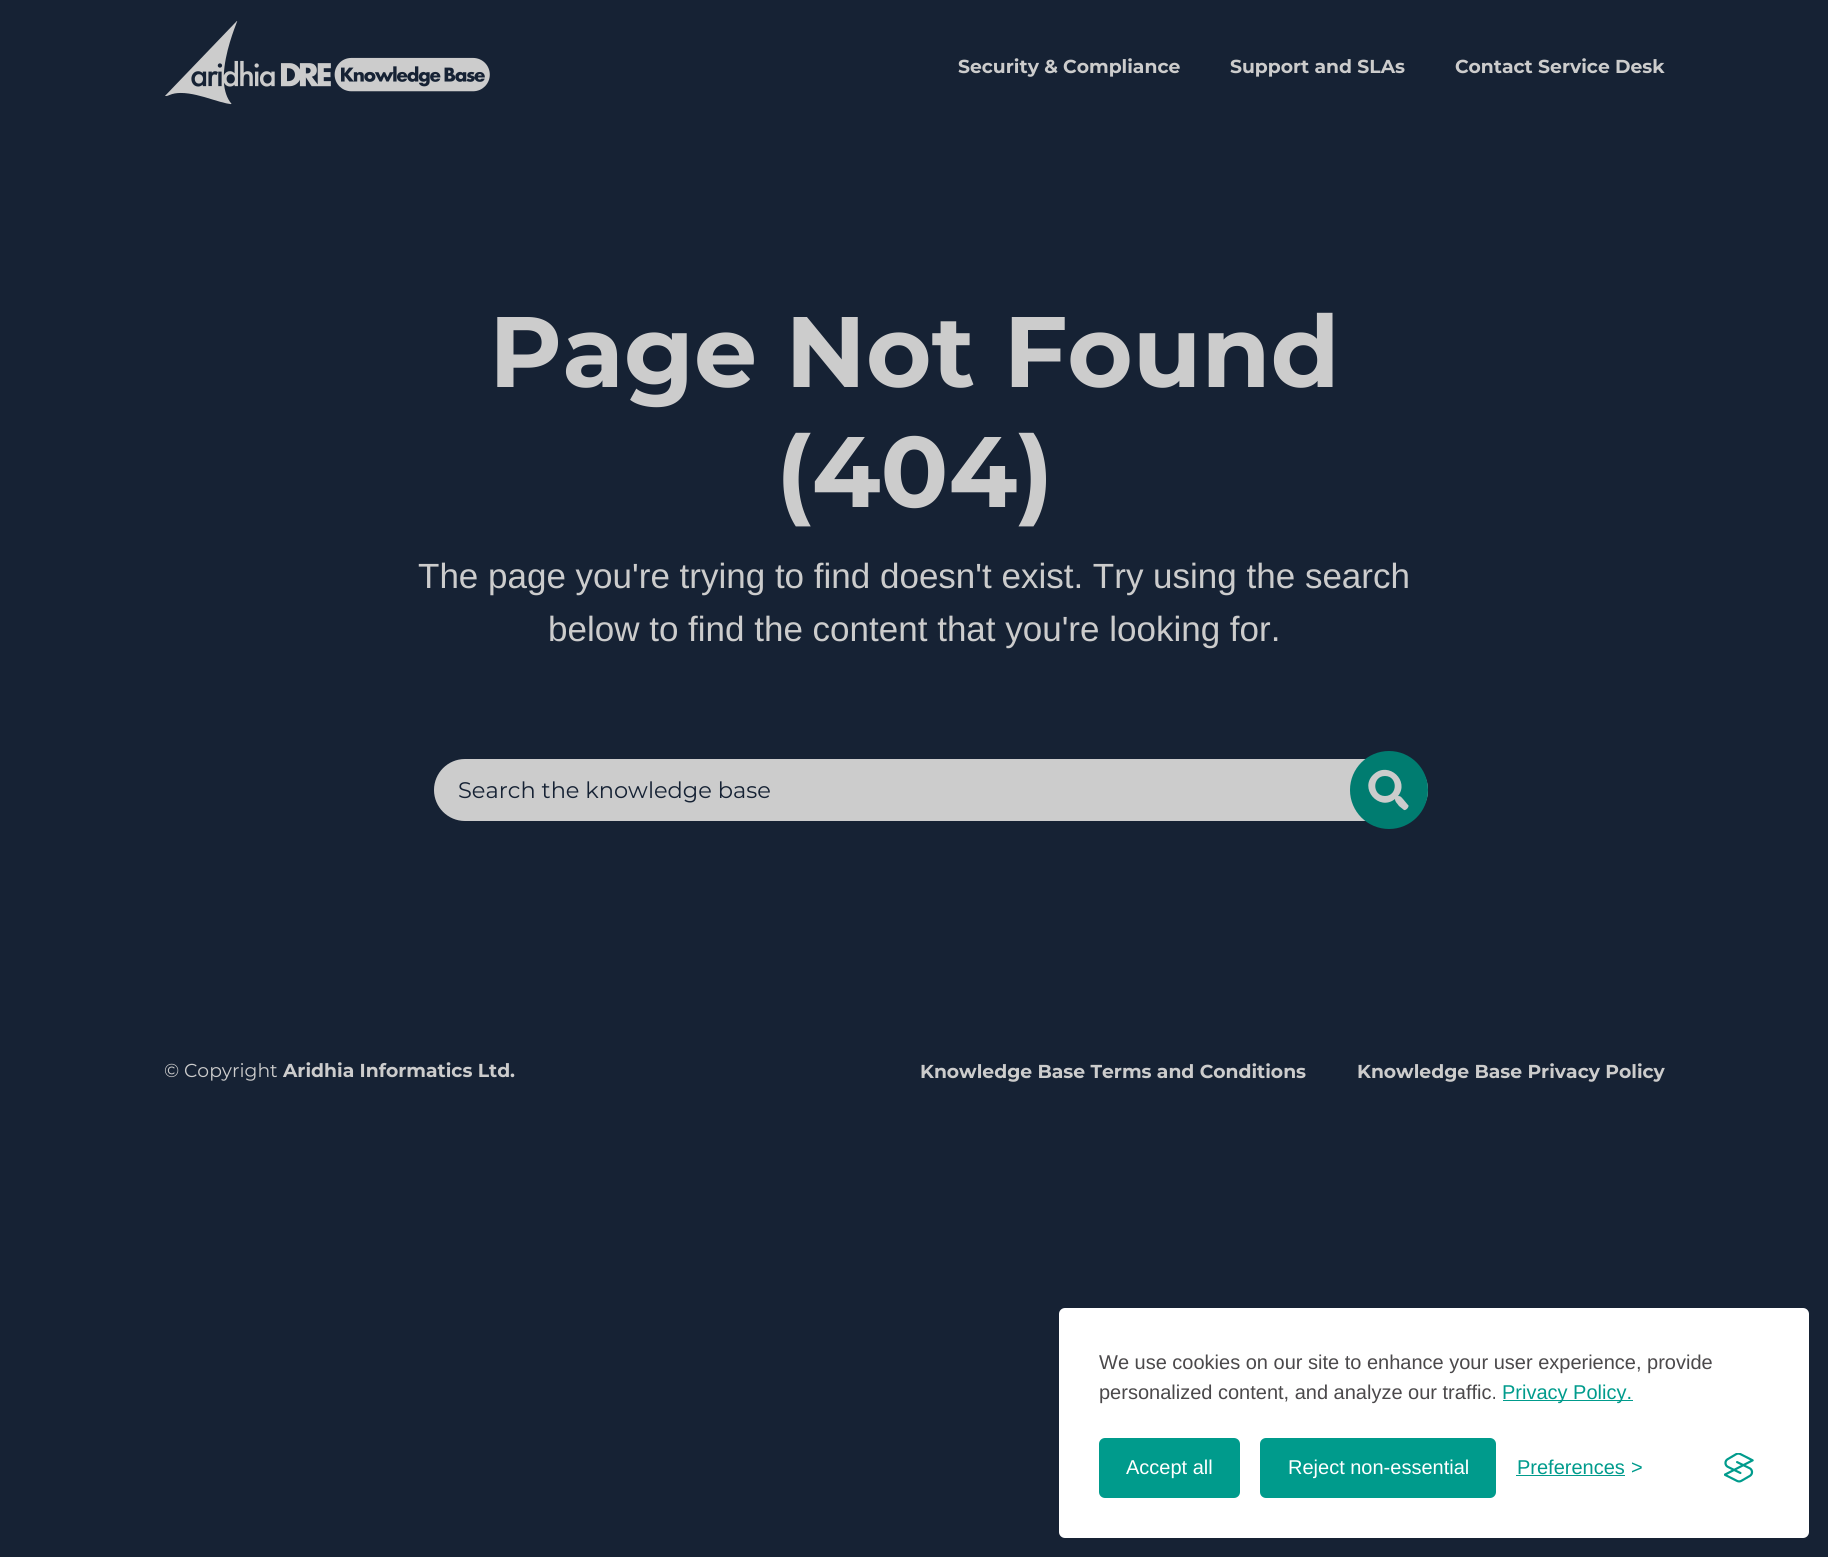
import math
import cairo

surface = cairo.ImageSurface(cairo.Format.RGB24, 1828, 1557)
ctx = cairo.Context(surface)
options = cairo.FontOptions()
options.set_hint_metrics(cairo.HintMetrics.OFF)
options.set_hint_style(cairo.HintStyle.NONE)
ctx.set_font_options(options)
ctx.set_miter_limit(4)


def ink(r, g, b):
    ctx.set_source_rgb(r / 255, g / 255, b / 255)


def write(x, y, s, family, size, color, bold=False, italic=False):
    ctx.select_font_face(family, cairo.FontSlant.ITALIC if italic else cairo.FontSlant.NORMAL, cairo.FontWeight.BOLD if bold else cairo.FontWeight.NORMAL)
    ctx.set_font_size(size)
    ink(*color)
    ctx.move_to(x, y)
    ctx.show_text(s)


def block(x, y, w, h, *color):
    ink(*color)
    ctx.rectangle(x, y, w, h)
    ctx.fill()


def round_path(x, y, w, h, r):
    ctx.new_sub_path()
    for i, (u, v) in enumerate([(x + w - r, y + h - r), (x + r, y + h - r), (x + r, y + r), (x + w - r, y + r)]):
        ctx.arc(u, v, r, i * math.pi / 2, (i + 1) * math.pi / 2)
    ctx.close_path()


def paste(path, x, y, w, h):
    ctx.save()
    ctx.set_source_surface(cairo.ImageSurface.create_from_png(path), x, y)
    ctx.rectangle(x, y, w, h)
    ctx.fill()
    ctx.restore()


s1 = dict(family="Montserrat", size=18.75, color=(204, 204, 204), bold=True)
s2 = dict(family="Montserrat", size=100, color=(204, 204, 204), bold=True)
s3 = dict(family="Liberation Sans", size=35, color=(204, 204, 204))
s4 = dict(family="Montserrat", size=22.5, color=(22, 34, 52))
s5 = dict(family="Montserrat", size=18.75, color=(204, 204, 204))
s6 = dict(family="Liberation Sans", size=20, color=(75, 73, 75))
s7 = dict(family="Liberation Sans", size=20, color=(0, 155, 140))
s8 = dict(family="Liberation Sans", size=20, color=(255, 255, 255))

ink(22, 34, 52)
ctx.paint()
paste("pic1.png", 165, 21, 325, 84)
write(958, 73, "Security & Compliance", **s1)
write(1230, 73, "Support and SLAs", **s1)
write(1455, 73, "Contact Service Desk", **s1)
write(489, 387, "Page Not Found", **s2)
write(776, 507, "(404)", **s2)
write(418, 588, "The page you're trying to find doesn't exist. Try using the search", **s3)
write(548, 641, "below to find the content that you're looking for.", **s3)
round_path(434, 759, 994, 62, 31)
ctx.fill()
write(458, 798, "Search the knowledge base", **s4)
ink(0, 124, 112)
ctx.new_path()
ctx.arc(1389, 790, 39, 0, 2 * math.pi)
ctx.fill()
ink(204, 204, 204)
ctx.new_path()
ctx.move_to(1385, 796)
ctx.curve_to(1372, 796, 1372, 776, 1385, 776)
ctx.curve_to(1398, 776, 1398, 796, 1385, 796)
ctx.move_to(1408, 805)
ctx.line_to(1403, 799)
ctx.curve_to(1401, 797, 1401, 796, 1398, 796)
ctx.curve_to(1410, 781, 1389, 761, 1374, 774)
ctx.curve_to(1358, 788, 1379, 812, 1395, 799)
ctx.curve_to(1395, 802, 1397, 803, 1399, 806)
ctx.line_to(1404, 810)
ctx.curve_to(1406, 811, 1410, 806, 1408, 805)
ctx.fill()
write(164, 1077, "© Copyright", **s5)
write(283, 1077, "Aridhia Informatics Ltd.", **s1)
write(920, 1078, "Knowledge Base Terms and Conditions", **s1)
write(1357, 1078, "Knowledge Base Privacy Policy", **s1)
ink(255, 255, 255)
round_path(1059, 1308, 750, 230, 6)
ctx.fill()
write(1099, 1369, "We use cookies on our site to enhance your user experience, provide", **s6)
write(1099, 1399, "personalized content, and analyze our traffic.", **s6)
block(1503, 1400, 130, 1, 0, 155, 140)
write(1502, 1399, "Privacy Policy.", **s7)
round_path(1100.5, 1439.5, 138, 57, 4.5)
ctx.fill_preserve()
ctx.set_line_width(3)
ctx.stroke()
write(1126, 1474, "Accept all", **s8)
ink(0, 155, 140)
round_path(1261.5, 1439.5, 233, 57, 4.5)
ctx.fill_preserve()
ctx.stroke()
write(1288, 1474, "Reject non-essential", **s8)
write(1517, 1474, "Preferences", **s7)
block(1516, 1475, 109, 1, 0, 155, 140)
write(1631, 1474, ">", **s7)
paste("pic2.png", 1724, 1453, 30, 30)
surface.write_to_png("screenshot.png")
